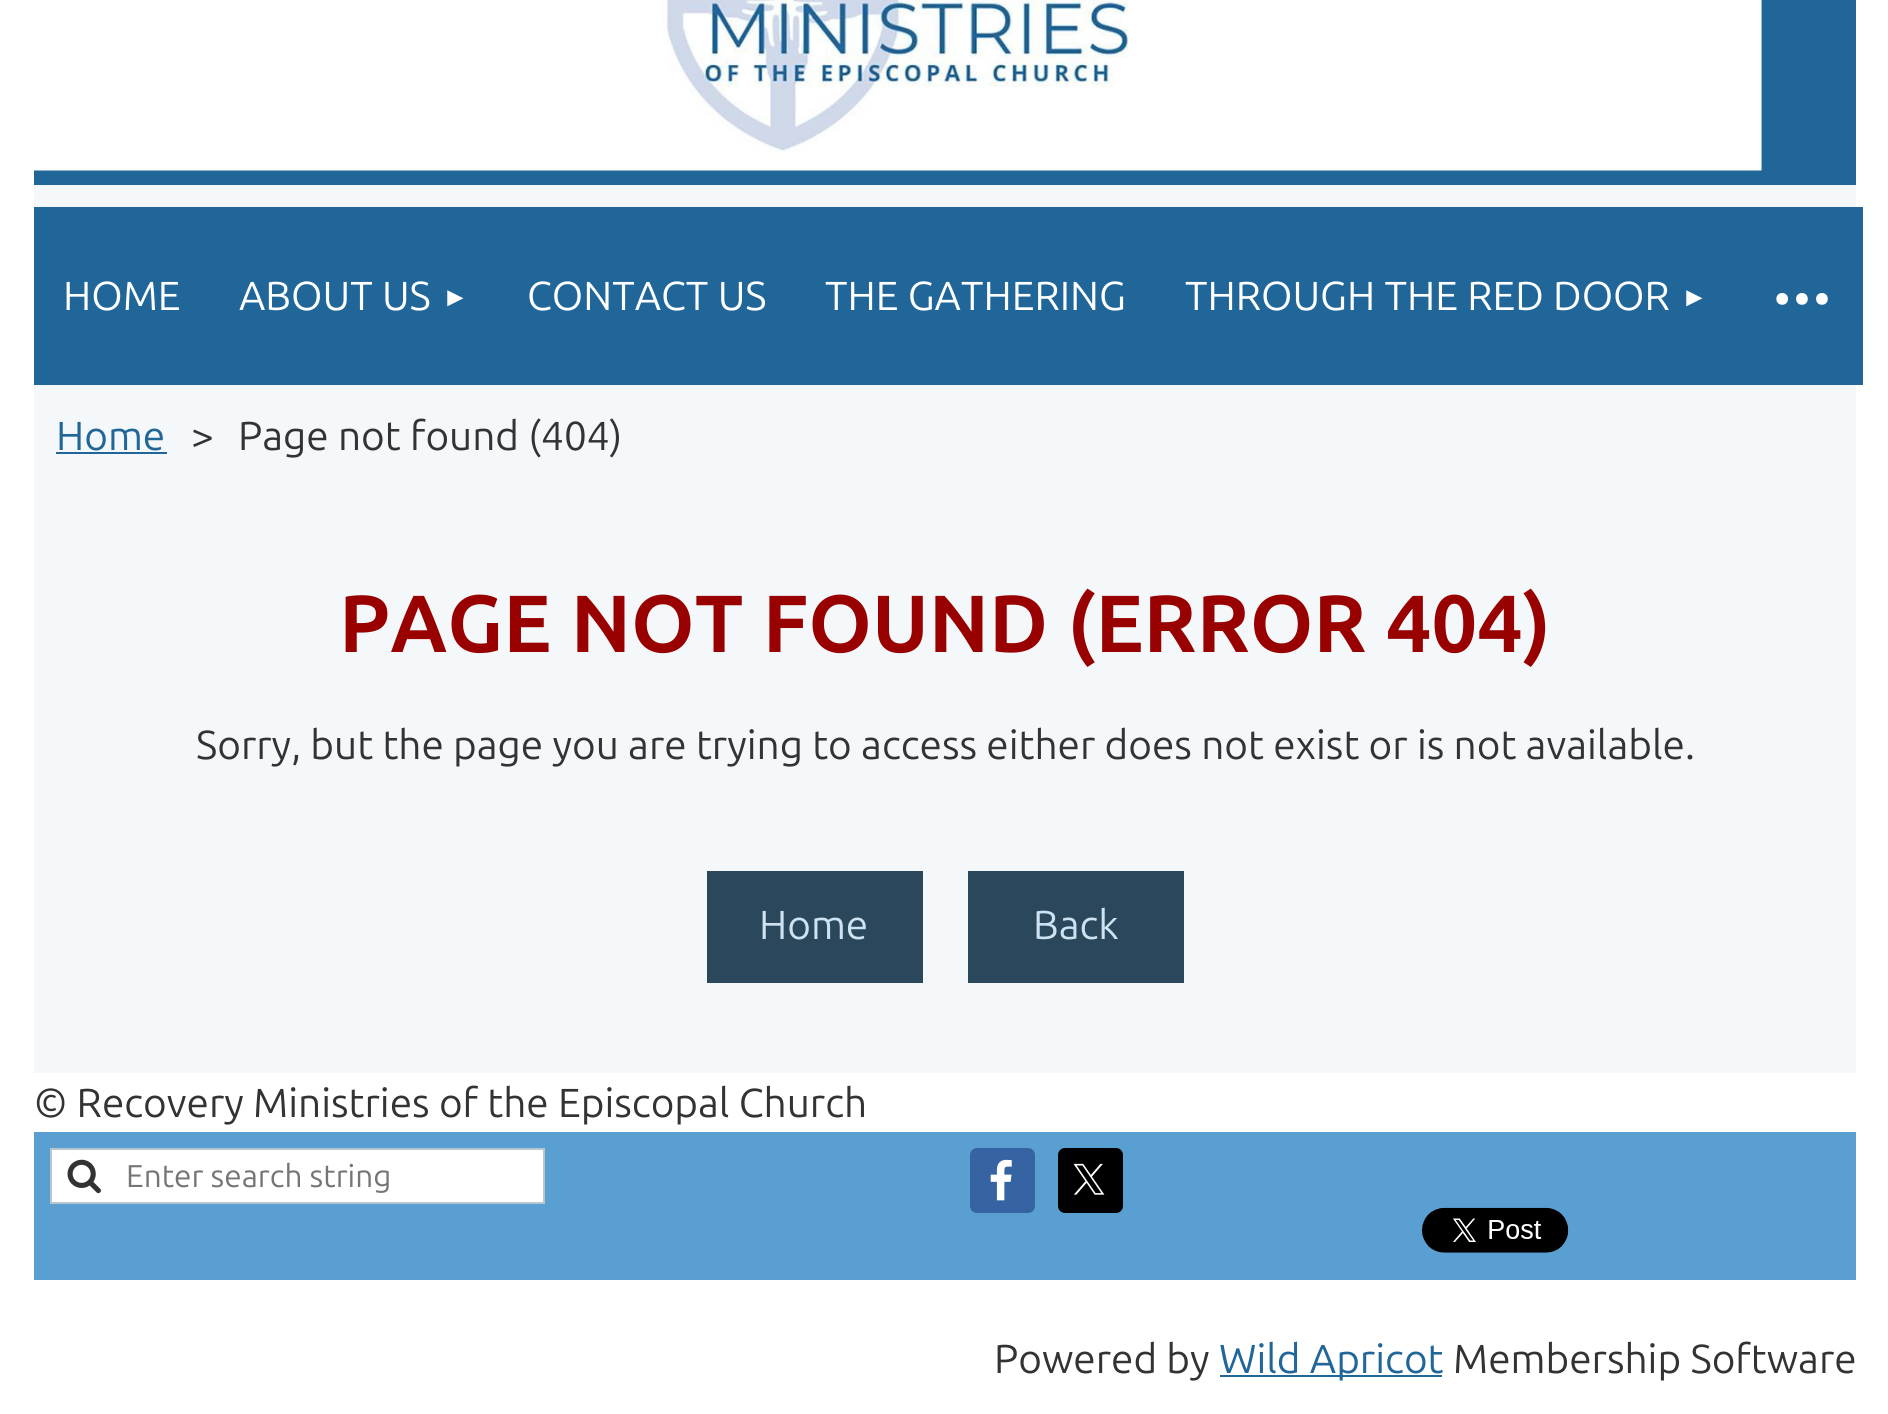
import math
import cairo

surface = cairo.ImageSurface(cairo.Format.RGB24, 1888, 1414)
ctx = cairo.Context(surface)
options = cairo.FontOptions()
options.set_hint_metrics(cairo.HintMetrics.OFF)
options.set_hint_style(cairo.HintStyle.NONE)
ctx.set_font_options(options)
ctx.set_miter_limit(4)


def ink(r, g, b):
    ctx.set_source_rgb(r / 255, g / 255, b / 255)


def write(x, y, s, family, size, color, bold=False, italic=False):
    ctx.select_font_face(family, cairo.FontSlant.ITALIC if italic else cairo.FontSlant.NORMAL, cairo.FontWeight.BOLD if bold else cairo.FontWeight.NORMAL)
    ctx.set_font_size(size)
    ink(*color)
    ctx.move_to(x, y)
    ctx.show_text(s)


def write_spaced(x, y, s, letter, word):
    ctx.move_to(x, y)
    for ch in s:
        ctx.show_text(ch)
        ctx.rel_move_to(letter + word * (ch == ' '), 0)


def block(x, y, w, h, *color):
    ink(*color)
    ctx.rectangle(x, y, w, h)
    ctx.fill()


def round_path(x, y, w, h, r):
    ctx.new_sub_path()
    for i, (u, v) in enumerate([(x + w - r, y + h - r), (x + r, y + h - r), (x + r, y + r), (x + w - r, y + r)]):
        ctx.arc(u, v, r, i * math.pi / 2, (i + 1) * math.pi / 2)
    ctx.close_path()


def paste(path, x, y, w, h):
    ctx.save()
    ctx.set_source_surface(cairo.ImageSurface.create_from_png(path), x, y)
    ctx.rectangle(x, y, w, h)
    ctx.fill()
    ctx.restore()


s1 = dict(family="Ubuntu", size=40.5, color=(255, 255, 255))
s2 = dict(family="Liberation Sans", size=27, color=(255, 255, 255))
s3 = dict(family="Ubuntu", size=40.5, color=(32, 102, 153))
s4 = dict(family="Ubuntu", size=40.5, color=(51, 51, 51))
s5 = dict(family="Ubuntu", size=81, color=(153, 0, 0), bold=True)
s6 = dict(family="Ubuntu", size=40.5, color=(206, 227, 242))
s7 = dict(family="Ubuntu", size=31.5, color=(117, 117, 117))

ink(255, 255, 255)
ctx.paint()
block(34, 185, 1822, 22, 244, 248, 250)
block(34, 0, 1822, 185, 32, 102, 153)
paste("pic1.png", 34, 0, 1728, 171)
block(34, 385, 1822, 688, 244, 248, 250)
block(34, 207, 1829, 178, 32, 102, 153)
write(63, 310, "HOME", **s1)
write(239, 310, "ABOUT US", **s1)
write(442, 306, "►", **s2)
write(527, 310, "CONTACT US", **s1)
write(825, 310, "THE GATHERING", **s1)
write(1185, 310, "THROUGH THE RED DOOR", **s1)
write(1681, 306, "►", **s2)
ctx.select_font_face("Ubuntu")
ctx.set_font_size(99)
write_spaced(1770, 328, "···", -4.5, 0)
write(56, 450, "Home", **s3)
block(56, 452, 111, 2, 32, 102, 153)
write(191, 450, ">", **s4)
write(238, 450, "Page not found (404)", **s4)
write(339, 652, "PAGE NOT FOUND (ERROR 404)", **s5)
write(196, 759, "Sorry, but the page you are trying to access either does not exist or is not available.", **s4)
block(707, 871, 216, 112, 43, 71, 91)
write(759, 939, "Home", **s6)
block(968, 871, 216, 112, 43, 71, 91)
write(1033, 939, "Back", **s6)
write(34, 1117, "© Recovery Ministries of the Episcopal Church", **s4)
block(34, 1132, 1822, 148, 89, 159, 210)
ink(255, 255, 255)
ctx.rectangle(51, 1149, 493, 54)
ctx.fill_preserve()
ink(184, 198, 205)
ctx.stroke()
paste("pic2.png", 67, 1159, 34, 35)
write(126, 1187, "Enter search string", **s7)
ink(54, 100, 162)
round_path(970, 1148, 65, 65, 7)
ctx.fill()
paste("pic3.png", 990, 1159, 22, 42)
ink(0, 0, 0)
round_path(1058, 1148, 65, 65, 7)
ctx.fill()
paste("pic4.png", 1073, 1163, 32, 32)
paste("pic5.png", 1422, 1207, 147, 46)
write(994, 1373, "Powered by", **s4)
block(1220, 1375, 222, 2, 32, 102, 153)
write(1219, 1373, "Wild Apricot", **s3)
write(1453, 1373, "Membership Software", **s4)
surface.write_to_png("screenshot.png")
